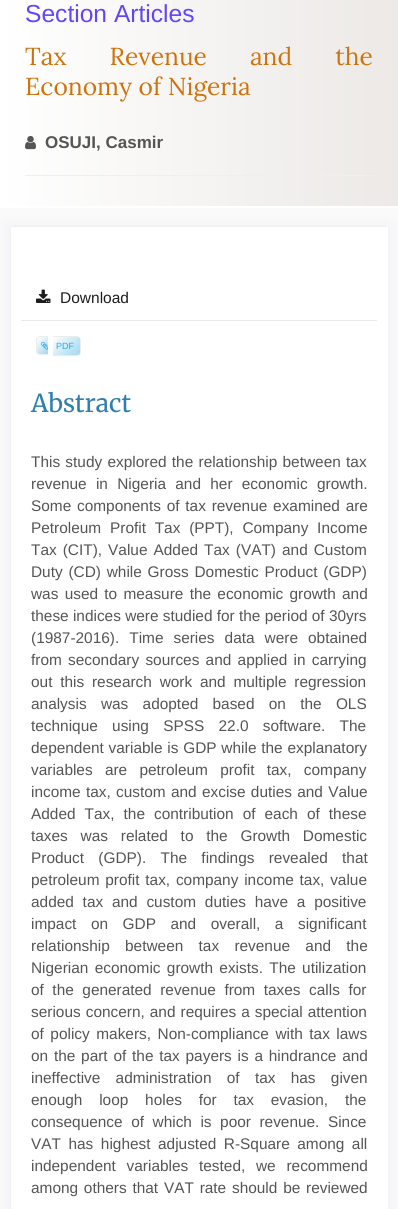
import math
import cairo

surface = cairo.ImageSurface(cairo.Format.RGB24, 398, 1209)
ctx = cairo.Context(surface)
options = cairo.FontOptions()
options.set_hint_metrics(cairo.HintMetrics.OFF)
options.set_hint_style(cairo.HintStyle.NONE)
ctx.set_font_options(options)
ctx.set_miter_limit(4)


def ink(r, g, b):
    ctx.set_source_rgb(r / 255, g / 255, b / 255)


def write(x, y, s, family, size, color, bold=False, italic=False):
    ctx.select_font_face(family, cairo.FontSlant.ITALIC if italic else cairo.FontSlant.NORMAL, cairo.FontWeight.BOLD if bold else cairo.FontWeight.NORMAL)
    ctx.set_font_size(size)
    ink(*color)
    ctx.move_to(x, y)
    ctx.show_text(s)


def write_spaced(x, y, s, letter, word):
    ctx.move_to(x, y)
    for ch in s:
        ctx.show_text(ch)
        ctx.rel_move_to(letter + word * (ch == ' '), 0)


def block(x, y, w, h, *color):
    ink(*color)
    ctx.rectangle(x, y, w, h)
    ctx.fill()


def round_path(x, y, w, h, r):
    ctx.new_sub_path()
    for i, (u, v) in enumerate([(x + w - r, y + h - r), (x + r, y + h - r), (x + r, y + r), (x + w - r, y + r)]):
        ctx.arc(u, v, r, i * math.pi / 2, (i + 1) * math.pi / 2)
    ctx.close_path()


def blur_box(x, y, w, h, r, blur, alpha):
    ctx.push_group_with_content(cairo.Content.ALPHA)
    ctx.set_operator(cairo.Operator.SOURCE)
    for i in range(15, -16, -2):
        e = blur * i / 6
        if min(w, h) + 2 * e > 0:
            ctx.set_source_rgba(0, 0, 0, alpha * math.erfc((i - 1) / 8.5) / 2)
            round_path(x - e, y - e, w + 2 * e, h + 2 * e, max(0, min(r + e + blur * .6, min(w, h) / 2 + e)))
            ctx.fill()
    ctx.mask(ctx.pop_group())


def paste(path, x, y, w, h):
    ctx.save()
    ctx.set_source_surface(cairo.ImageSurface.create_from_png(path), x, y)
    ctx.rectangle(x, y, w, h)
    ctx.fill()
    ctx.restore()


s1 = dict(family="Liberation Sans", size=24.6, color=(99, 69, 246))
s2 = dict(family="Lora", size=24.6, color=(206, 115, 12))
s3 = dict(family="Liberation Sans", size=17, color=(85, 85, 85), bold=True)
s4 = dict(family="Liberation Sans", size=15.5, color=(29, 29, 29))
s5 = dict(family="Liberation Sans", size=9, color=(47, 164, 231))
s6 = dict(family="Merriweather Light", size=24.6, color=(49, 126, 172))
s7 = dict(family="Liberation Sans", size=15.4, color=(85, 85, 85))

ink(250, 250, 250)
ctx.paint()
gradient = cairo.LinearGradient(0, 88, 398, 87)
gradient.add_color_stop_rgba(0, 1, 1, 1, 1)
gradient.add_color_stop_rgba(1, 0.925, 0.914, 0.902, 1)
ctx.set_source(gradient)
ctx.rectangle(0, 0, 398, 206)
ctx.fill()
block(0, 206, 398, 2, 255, 255, 255)
write(25, 22, "Section Articles", **s1)
ctx.select_font_face("Lora")
ink(206, 115, 12)
write_spaced(25, 65, "Tax Revenue and the", 0, 36.5)
write(25, 95, "Economy of Nigeria", **s2)
block(25, 175, 353, 1, 243, 238, 236)
paste("pic1.png", 25, 135, 11, 15)
write(45, 148, "OSUJI, Casmir", **s3)
ink(113, 106, 202)
blur_box(9, 226, 380, 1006, 0, 7.5, 0.08)
block(11, 227, 376, 982, 255, 255, 255)
block(10, 226, 378, 1, 241, 241, 241)
block(387, 226, 1, 983, 255, 255, 255)
block(10, 226, 1, 983, 241, 241, 241)
block(21, 320, 356, 1, 235, 234, 234)
paste("pic2.png", 36, 289, 15, 14)
write(60, 303, "Download", **s4)
gradient = cairo.LinearGradient(36, 339, 50, 353)
gradient.add_color_stop_rgba(0, 0.996, 1, 1, 1)
gradient.add_color_stop_rgba(0.35, 0.867, 0.945, 0.976, 1)
gradient.add_color_stop_rgba(1, 0.627, 0.847, 0.937, 1)
ctx.set_source(gradient)
ctx.rectangle(37, 337, 11, 17)
ctx.fill()
ink(235, 236, 236)
ctx.set_fill_rule(cairo.FillRule.EVEN_ODD)
ctx.new_path()
ctx.move_to(40, 336)
ctx.line_to(48, 336)
ctx.line_to(48, 355)
ctx.line_to(40, 355)
ctx.curve_to(38, 355, 36, 353, 36, 351)
ctx.line_to(36, 340)
ctx.curve_to(36, 338, 38, 336, 40, 336)
ctx.close_path()
ctx.move_to(40, 337)
ctx.line_to(48, 337)
ctx.line_to(48, 354)
ctx.line_to(40, 354)
ctx.curve_to(38.5, 354, 37, 352.5, 37, 351)
ctx.line_to(37, 340)
ctx.curve_to(37, 338.5, 38.5, 337, 40, 337)
ctx.close_path()
ctx.fill()
gradient = cairo.LinearGradient(55, 335, 78, 357)
gradient.add_color_stop_rgba(0, 0.996, 1, 1, 1)
gradient.add_color_stop_rgba(0.35, 0.867, 0.945, 0.976, 1)
gradient.add_color_stop_rgba(1, 0.627, 0.847, 0.937, 1)
ctx.set_source(gradient)
ctx.rectangle(53, 337, 27, 18)
ctx.fill()
ink(235, 236, 236)
ctx.new_path()
ctx.move_to(53, 336)
ctx.line_to(77, 336)
ctx.curve_to(79, 336, 81, 338, 81, 340)
ctx.line_to(81, 352)
ctx.curve_to(81, 354, 79, 356, 77, 356)
ctx.line_to(53, 356)
ctx.close_path()
ctx.move_to(53, 337)
ctx.line_to(73, 337)
ctx.curve_to(81.5, 337, 80, 338, 80, 346)
ctx.curve_to(80, 354, 81.5, 355, 73, 355)
ctx.line_to(53, 355)
ctx.close_path()
ctx.fill()
paste("pic3.png", 41, 341, 8, 9)
write(56, 349, "PDF", **s5)
write(31, 412, "Abstract", **s6)
ctx.select_font_face("Liberation Sans")
ctx.set_font_size(15.4)
ink(85, 85, 85)
write_spaced(31, 467, "This study explored the relationship between tax", 0, 1)
write_spaced(31, 489, "revenue in Nigeria and her economic growth.", 0, 5)
write_spaced(31, 511, "Some components of tax revenue examined are", 0, 1.5)
write_spaced(31, 533, "Petroleum Profit Tax (PPT), Company Income", 0, 4.5)
write_spaced(31, 555, "Tax (CIT), Value Added Tax (VAT) and Custom", 0, 1.75)
write_spaced(31, 577, "Duty (CD) while Gross Domestic Product (GDP)", 0, 1.5)
write_spaced(31, 599, "was used to measure the economic growth and", 0, 2)
write(31, 621, "these indices were studied for the period of 30yrs", **s7)
write_spaced(31, 643, "(1987-2016). Time series data were obtained", 0, 5.75)
write_spaced(31, 665, "from secondary sources and applied in carrying", 0, 2)
write_spaced(31, 687, "out this research work and multiple regression", 0, 3.5)
write_spaced(31, 709, "analysis was adopted based on the OLS", 0, 10)
write_spaced(31, 731, "technique using SPSS 22.0 software. The", 0, 10)
write_spaced(31, 753, "dependent variable is GDP while the explanatory", 0, 0.5)
write_spaced(31, 775, "variables are petroleum profit tax, company", 0, 8)
write_spaced(31, 797, "income tax, custom and excise duties and Value", 0, 1)
write_spaced(31, 819, "Added Tax, the contribution of each of these", 0, 4.75)
write_spaced(31, 841, "taxes was related to the Growth Domestic", 0, 8.5)
write_spaced(31, 863, "Product (GDP). The findings revealed that", 0, 10)
write_spaced(31, 885, "petroleum profit tax, company income tax, value", 0, 1.5)
write_spaced(31, 907, "added tax and custom duties have a positive", 0, 4.5)
write_spaced(31, 929, "impact on GDP and overall, a significant", 0, 10.25)
write_spaced(31, 951, "relationship between tax revenue and the", 0, 11)
write_spaced(31, 973, "Nigerian economic growth exists. The utilization", 0, 2)
write_spaced(31, 995, "of the generated revenue from taxes calls for", 0, 4.25)
write_spaced(31, 1017, "serious concern, and requires a special attention", 0, 0.75)
write_spaced(31, 1039, "of policy makers, Non-compliance with tax laws", 0, 2.25)
write_spaced(31, 1061, "on the part of the tax payers is a hindrance and", 0, 1.5)
write_spaced(31, 1083, "ineffective administration of tax has given", 0, 11)
write_spaced(31, 1105, "enough loop holes for tax evasion, the", 0, 12.5)
write_spaced(31, 1127, "consequence of which is poor revenue. Since", 0, 4.25)
write_spaced(31, 1149, "VAT has highest adjusted R-Square among all", 0, 3.25)
write_spaced(31, 1171, "independent variables tested, we recommend", 0, 6.5)
write_spaced(31, 1193, "among others that VAT rate should be reviewed", 0, 1.5)
surface.write_to_png("screenshot.png")
